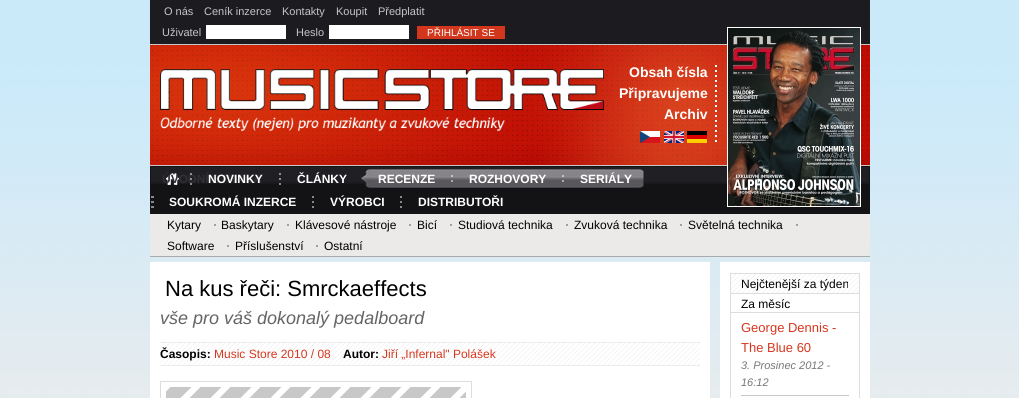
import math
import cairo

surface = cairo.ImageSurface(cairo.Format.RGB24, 1019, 398)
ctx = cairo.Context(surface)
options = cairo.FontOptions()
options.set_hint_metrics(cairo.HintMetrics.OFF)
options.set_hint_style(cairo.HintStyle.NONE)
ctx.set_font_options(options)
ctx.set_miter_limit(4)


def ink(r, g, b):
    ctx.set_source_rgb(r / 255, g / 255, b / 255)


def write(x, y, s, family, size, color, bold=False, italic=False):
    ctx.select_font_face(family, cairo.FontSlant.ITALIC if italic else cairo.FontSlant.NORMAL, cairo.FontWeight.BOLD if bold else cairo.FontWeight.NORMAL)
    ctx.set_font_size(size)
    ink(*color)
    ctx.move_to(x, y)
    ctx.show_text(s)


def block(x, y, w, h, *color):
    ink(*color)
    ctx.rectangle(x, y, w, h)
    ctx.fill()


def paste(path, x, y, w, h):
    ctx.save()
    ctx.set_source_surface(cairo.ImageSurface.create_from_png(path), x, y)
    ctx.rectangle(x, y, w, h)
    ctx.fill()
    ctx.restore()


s1 = dict(family="Liberation Sans", size=11, color=(198, 198, 198))
s2 = dict(family="Liberation Sans", size=10, color=(255, 255, 255))
s3 = dict(family="Liberation Sans", size=14, color=(255, 255, 255), bold=True)
s4 = dict(family="Liberation Sans", size=12, color=(49, 48, 52), bold=True)
s5 = dict(family="Liberation Sans", size=12, color=(255, 255, 255), bold=True)
s6 = dict(family="Liberation Sans", size=12, color=(0, 0, 0))
s7 = dict(family="Liberation Sans", size=22, color=(0, 0, 0))
s8 = dict(family="Liberation Sans", size=18, color=(100, 100, 100), italic=True)
s9 = dict(family="Liberation Sans", size=12, color=(0, 0, 0), bold=True)
s10 = dict(family="Liberation Sans", size=12, color=(213, 55, 30))
s11 = dict(family="Liberation Sans", size=13, color=(213, 55, 30))
s12 = dict(family="Liberation Sans", size=11, color=(119, 119, 119), italic=True)

ink(255, 255, 255)
ctx.paint()
paste("pic1.png", 0, 0, 1019, 398)
block(150, 0, 720, 44, 28, 27, 32)
write(164, 15, "O nás", **s1)
write(204, 15, "Ceník inzerce", **s1)
write(282, 15, "Kontakty", **s1)
write(336, 15, "Koupit", **s1)
write(378, 15, "Předplatit", **s1)
write(162, 36, "Uživatel", **s1)
block(206, 25, 80, 14, 255, 255, 255)
write(296, 36, "Heslo", **s1)
block(329, 25, 80, 14, 255, 255, 255)
block(417, 26, 88, 13, 210, 55, 30)
write(427, 36, "PŘIHLÁSIT SE", **s2)
paste("pic2.png", 150, 45, 720, 120)
paste("pic3.png", 150, 45, 577, 120)
block(150, 44, 720, 1, 200, 200, 200)
block(150, 165, 720, 1, 200, 200, 200)
paste("pic4.png", 160, 69, 444, 62)
paste("pic5.png", 715, 65, 2, 77)
write(629, 77, "Obsah čísla", **s3)
write(619, 98, "Připravujeme", **s3)
write(664, 119, "Archiv", **s3)
paste("pic6.png", 640, 131, 20, 12)
paste("pic7.png", 664, 131, 20, 12)
paste("pic8.png", 687, 131, 20, 12)
block(151, 184, 718, 29, 19, 18, 21)
paste("pic10.png", 151, 167, 718, 17)
ctx.rectangle(150.5, 166.5, 719, 47)
ink(21, 20, 23)
ctx.set_line_width(1)
ctx.stroke()
ctx.rectangle(727.5, 27.5, 133, 179)
ink(255, 255, 255)
ctx.stroke()
paste("pic9.png", 728, 28, 132, 178)
paste("pic11.png", 166, 173, 13, 12)
write(162, 183, "ÚVODNÍ STRANA", **s4)
paste("pic12.png", 279, 173, 2, 12)
write(297, 183, "ČLÁNKY", **s5)
paste("pic13.png", 370, 169, 269, 19)
paste("pic14.png", 360, 169, 10, 19)
write(378, 183, "RECENZE", **s5)
paste("pic15.png", 451, 175, 2, 7)
write(469, 183, "ROZHOVORY", **s5)
paste("pic15.png", 562, 175, 2, 7)
paste("pic16.png", 639, 169, 5, 19)
write(580, 183, "SERIÁLY", **s5)
paste("pic17.png", 190, 173, 2, 12)
write(208, 183, "NOVINKY", **s5)
paste("pic18.png", 151, 196, 3, 12)
write(169, 206, "SOUKROMÁ INZERCE", **s5)
paste("pic19.png", 312, 196, 2, 12)
write(330, 206, "VÝROBCI", **s5)
paste("pic19.png", 400, 196, 2, 12)
write(418, 206, "DISTRIBUTOŘI", **s5)
block(150, 214, 720, 42, 236, 234, 233)
block(150, 256, 720, 1, 171, 171, 171)
block(214, 224, 2, 2, 160, 160, 160)
write(167, 229, "Kytary", **s6)
block(287, 224, 2, 2, 160, 160, 160)
write(221, 229, "Baskytary", **s6)
block(409, 224, 2, 2, 160, 160, 160)
write(295, 229, "Klávesové nástroje", **s6)
block(450, 224, 2, 2, 160, 160, 160)
write(417, 229, "Bicí", **s6)
block(566, 224, 2, 2, 160, 160, 160)
write(458, 229, "Studiová technika", **s6)
block(680, 224, 2, 2, 160, 160, 160)
write(574, 229, "Zvuková technika", **s6)
block(796, 224, 2, 2, 160, 160, 160)
write(688, 229, "Světelná technika", **s6)
block(227, 245, 2, 2, 160, 160, 160)
write(167, 250, "Software", **s6)
block(316, 245, 2, 2, 160, 160, 160)
write(235, 250, "Příslušenství", **s6)
write(324, 250, "Ostatní", **s6)
block(150, 262, 560, 136, 255, 255, 255)
write(165, 296, "Na kus řeči: Smrckaeffects", **s7)
write(160, 324, "vše pro váš dokonalý pedalboard", **s8)
paste("pic20.png", 160, 343, 540, 22)
block(160, 342, 540, 1, 236, 236, 236)
block(160, 365, 540, 1, 236, 236, 236)
write(160, 358, "Časopis:", **s9)
write(214, 358, "Music Store 2010 / 08", **s10)
write(343, 358, "Autor:", **s9)
write(382, 358, "Jiří „Infernal\" Polášek", **s10)
ctx.rectangle(160.5, 381.5, 311, 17)
ink(221, 221, 221)
ctx.stroke()
paste("pic21.png", 166, 387, 300, 11)
block(720, 262, 150, 136, 255, 255, 255)
paste("pic22.png", 731, 274, 128, 19)
block(730, 273, 130, 1, 221, 221, 221)
block(859, 273, 1, 20, 221, 221, 221)
block(730, 273, 1, 20, 221, 221, 221)
write(741, 288, "Nejčtenější za týden", **s6)
block(730, 293, 130, 1, 221, 221, 221)
ctx.rectangle(730.5, 312.5, 129, 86)
ctx.stroke()
block(859, 293, 1, 20, 221, 221, 221)
block(730, 293, 1, 20, 221, 221, 221)
write(741, 308, "Za měsíc", **s6)
block(741, 395, 108, 1, 200, 200, 200)
write(741, 332, "George Dennis -", **s11)
write(741, 352, "The Blue 60", **s11)
write(741, 369, "3. Prosinec 2012 -", **s12)
write(741, 386, "16:12", **s12)
surface.write_to_png("screenshot.png")
